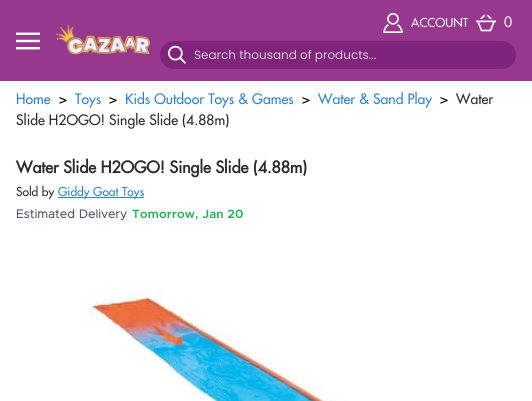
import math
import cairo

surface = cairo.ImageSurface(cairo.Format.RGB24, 532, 401)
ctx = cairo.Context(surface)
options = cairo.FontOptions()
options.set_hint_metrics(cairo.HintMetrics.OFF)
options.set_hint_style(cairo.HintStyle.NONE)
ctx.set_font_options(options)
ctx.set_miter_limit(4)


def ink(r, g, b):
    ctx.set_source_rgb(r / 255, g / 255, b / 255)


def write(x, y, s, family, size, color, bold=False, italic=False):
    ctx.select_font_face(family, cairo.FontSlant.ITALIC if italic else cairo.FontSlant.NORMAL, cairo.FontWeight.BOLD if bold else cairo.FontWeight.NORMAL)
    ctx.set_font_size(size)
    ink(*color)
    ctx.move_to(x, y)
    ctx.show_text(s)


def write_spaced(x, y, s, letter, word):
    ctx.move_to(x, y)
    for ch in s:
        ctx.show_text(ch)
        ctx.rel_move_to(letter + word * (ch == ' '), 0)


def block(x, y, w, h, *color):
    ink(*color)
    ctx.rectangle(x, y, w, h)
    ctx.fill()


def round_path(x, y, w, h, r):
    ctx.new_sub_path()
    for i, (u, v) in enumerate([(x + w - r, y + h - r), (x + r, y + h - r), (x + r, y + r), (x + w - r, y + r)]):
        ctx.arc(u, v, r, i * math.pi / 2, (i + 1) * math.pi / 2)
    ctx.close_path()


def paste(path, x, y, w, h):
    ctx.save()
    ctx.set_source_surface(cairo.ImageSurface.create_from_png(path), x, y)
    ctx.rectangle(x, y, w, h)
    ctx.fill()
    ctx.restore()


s1 = dict(family="Futura Medium", size=12, color=(255, 255, 255))
s2 = dict(family="Futura Medium", size=14, color=(255, 255, 255))
s3 = dict(family="Poppins", size=12, color=(223, 200, 222))
s4 = dict(family="Futura Medium", size=14, color=(49, 130, 206))
s5 = dict(family="Futura Medium", size=14, color=(0, 0, 0))
s6 = dict(family="Futura Medium", size=14, color=(44, 43, 43))
s7 = dict(family="Futura", size=16, color=(44, 43, 43), bold=True)
s8 = dict(family="Futura Medium", size=12, color=(44, 43, 43))
s9 = dict(family="Futura Medium", size=12, color=(49, 130, 206))

ink(151, 55, 142)
ctx.paint()
paste("pic1.png", 16, 32, 24, 18)
paste("pic2.png", 56, 25, 96, 31)
paste("pic3.png", 383, 13, 20, 20)
write(411, 27, "ACCOUNT", **s1)
paste("pic4.png", 476, 14, 20, 18)
write(504, 27, "0", **s2)
ink(128, 35, 123)
round_path(160, 41, 356, 28, 14)
ctx.fill()
paste("pic5.png", 168, 45, 18, 19)
write(194, 59, "Search thousand of products...", **s3)
block(0, 81, 532, 320, 255, 255, 255)
write(16, 104, "Home", **s4)
write(59, 104, ">", **s5)
write(75, 104, "Toys", **s4)
write(109, 104, ">", **s5)
write(125, 104, "Kids Outdoor Toys & Games", **s4)
write(302, 104, ">", **s5)
write(318, 104, "Water & Sand Play", **s4)
write(440, 104, ">", **s5)
write(456, 104, "Water", **s6)
write(16, 125, "Slide H2OGO! Single Slide (4.88m)", **s6)
write(16, 173, "Water Slide H2OGO! Single Slide (4.88m)", **s7)
write(16, 196, "Sold by", **s8)
block(58, 197, 86, 1, 49, 130, 206)
write(58, 196, "Giddy Goat Toys", **s9)
ctx.select_font_face("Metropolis", cairo.FontSlant.NORMAL, cairo.FontWeight.BOLD)
ink(74, 85, 104)
write_spaced(16, 218, "Estimated Delivery", 0.25, 0)
ctx.select_font_face("Metropolis SemiBold")
ink(26, 176, 75)
write_spaced(132, 218, "Tomorrow, Jan 20", 0.25, 0)
paste("pic6.png", 89, 292, 260, 109)
surface.write_to_png("screenshot.png")
